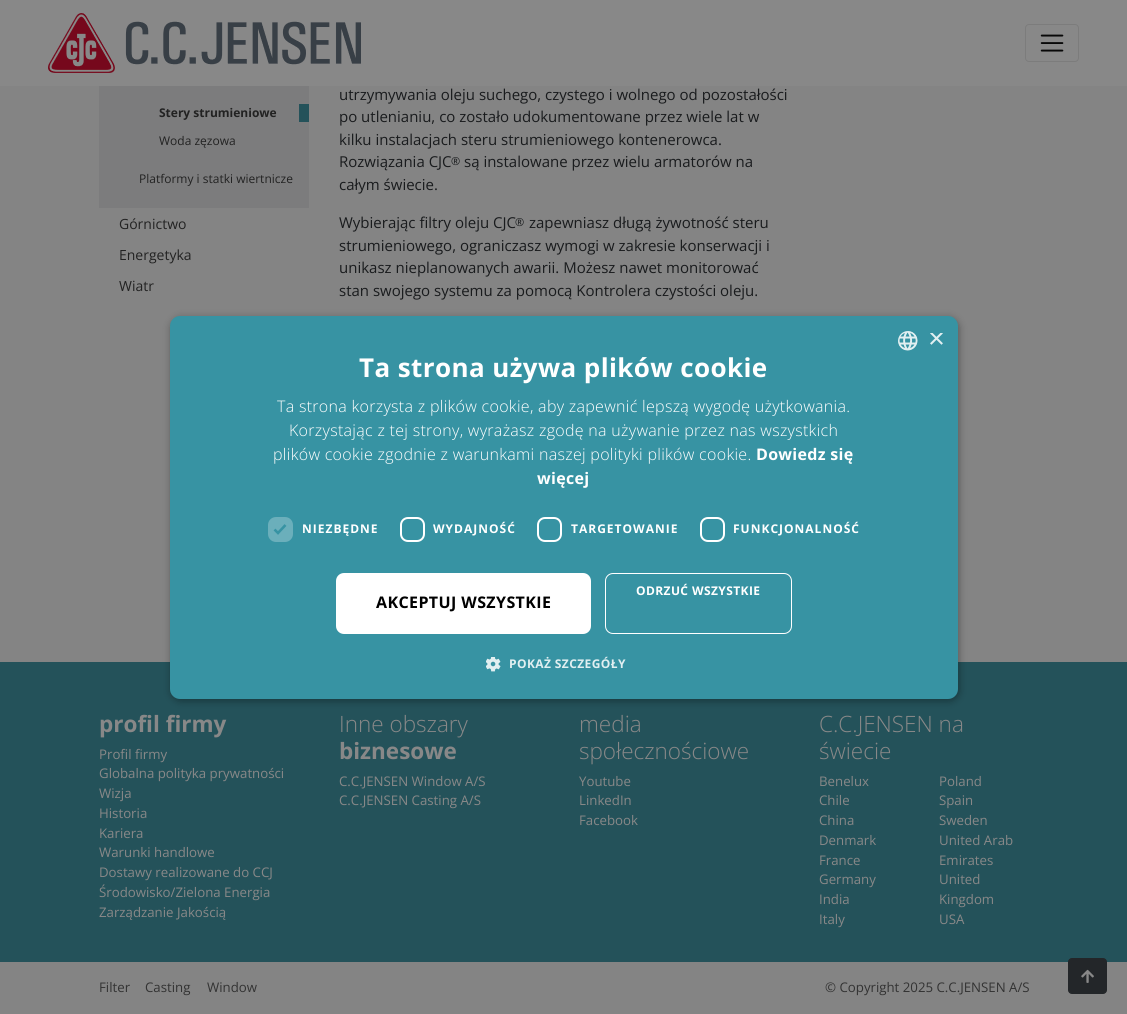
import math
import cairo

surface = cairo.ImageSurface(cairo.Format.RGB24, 1127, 1014)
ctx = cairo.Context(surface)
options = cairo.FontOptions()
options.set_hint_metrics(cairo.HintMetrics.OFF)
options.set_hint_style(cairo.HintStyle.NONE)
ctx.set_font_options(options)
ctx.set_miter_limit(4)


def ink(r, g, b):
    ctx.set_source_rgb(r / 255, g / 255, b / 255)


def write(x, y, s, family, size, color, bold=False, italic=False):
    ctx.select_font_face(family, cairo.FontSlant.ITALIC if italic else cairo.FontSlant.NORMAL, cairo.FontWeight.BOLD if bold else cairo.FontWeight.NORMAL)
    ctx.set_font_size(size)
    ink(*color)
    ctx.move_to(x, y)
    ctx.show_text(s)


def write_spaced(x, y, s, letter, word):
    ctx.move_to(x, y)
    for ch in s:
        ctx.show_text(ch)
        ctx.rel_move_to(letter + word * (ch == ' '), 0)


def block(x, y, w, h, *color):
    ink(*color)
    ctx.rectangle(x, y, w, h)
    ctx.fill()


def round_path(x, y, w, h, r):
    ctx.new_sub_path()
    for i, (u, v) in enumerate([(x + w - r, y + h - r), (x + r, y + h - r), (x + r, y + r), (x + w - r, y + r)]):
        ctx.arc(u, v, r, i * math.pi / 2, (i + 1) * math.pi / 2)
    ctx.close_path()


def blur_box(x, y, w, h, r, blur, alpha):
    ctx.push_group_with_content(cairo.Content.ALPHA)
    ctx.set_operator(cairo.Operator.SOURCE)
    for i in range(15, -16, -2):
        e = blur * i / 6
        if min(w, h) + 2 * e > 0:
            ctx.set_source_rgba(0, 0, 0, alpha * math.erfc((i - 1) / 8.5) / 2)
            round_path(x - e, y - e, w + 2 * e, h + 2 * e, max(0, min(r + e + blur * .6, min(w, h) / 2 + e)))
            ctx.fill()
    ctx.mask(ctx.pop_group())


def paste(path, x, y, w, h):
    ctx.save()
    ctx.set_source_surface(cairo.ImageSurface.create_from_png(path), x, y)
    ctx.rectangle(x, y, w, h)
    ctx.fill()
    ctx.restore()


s1 = dict(family="Open Sans", size=12, color=(34, 34, 34), bold=True)
s2 = dict(family="Open Sans", size=12, color=(34, 34, 34))
s3 = dict(family="Open Sans", size=14, color=(34, 34, 34))
s4 = dict(family="Open Sans", size=15, color=(25, 27, 29))
s5 = dict(family="Open Sans", size=11, color=(25, 27, 29))
s6 = dict(family="Liberation Sans", size=29, color=(225, 239, 241))
s7 = dict(family="Open Sans", size=22.5, color=(136, 136, 136), bold=True)
s8 = dict(family="Open Sans", size=13.25, color=(136, 136, 136))
s9 = dict(family="Open Sans Light", size=22.5, color=(136, 136, 136))
s10 = dict(family="Open Sans", size=13.25, color=(51, 51, 51))

ink(132, 132, 132)
ctx.paint()
block(0, 0, 1127, 86, 136, 136, 136)
paste("pic1.png", 48, 13, 313, 60)
round_path(1025.5, 24.5, 53, 37, 3.5)
ink(124, 124, 124)
ctx.set_line_width(1)
ctx.stroke()
paste("pic2.png", 1040, 34, 24, 18)
block(99, 86, 210, 122, 124, 124, 125)
block(299, 104, 10, 18, 36, 82, 90)
write(159, 117, "Stery strumieniowe", **s1)
write(159, 145, "Woda zęzowa", **s2)
write(139, 183, "Platformy i statki wiertnicze", **s2)
write(119, 229, "Górnictwo", **s3)
write(119, 260, "Energetyka", **s3)
write(119, 291, "Wiatr", **s3)
write(339, 100, "utrzymywania oleju suchego, czystego i wolnego od pozostałości", **s4)
write(339, 122, "po utlenianiu, co zostało udokumentowane przez wiele lat w", **s4)
write(339, 145, "kilku instalacjach steru strumieniowego kontenerowca.", **s4)
write(339, 167, "Rozwiązania CJC", **s4)
write(451, 165, "®", **s5)
write(464, 167, "są instalowane przez wielu armatorów na", **s4)
write(339, 190, "całym świecie.", **s4)
write(339, 228, "Wybierając filtry oleju CJC", **s4)
write(515, 226, "®", **s5)
write(529, 228, "zapewniasz długą żywotność steru", **s4)
write(339, 251, "strumieniowego, ograniczasz wymogi w zakresie konserwacji i", **s4)
write(339, 273, "unikasz nieplanowanych awarii. Możesz nawet monitorować", **s4)
write(339, 296, "stan swojego systemu za pomocą Kontrolera czystości oleju.", **s4)
block(0, 662, 1127, 300, 36, 82, 90)
ink(0, 0, 0)
blur_box(171, 318, 788, 383, 10, 4, 0.35)
ink(55, 147, 163)
round_path(170, 316, 788, 383, 10)
ctx.fill()
paste("pic3.png", 898, 331, 20, 20)
ctx.save()
ctx.rectangle(928, 333, 15, 15)
ctx.clip()
write(928, 348, "×", **s6)
ctx.restore()
ctx.select_font_face("Open Sans", cairo.FontSlant.NORMAL, cairo.FontWeight.BOLD)
ctx.set_font_size(26)
ink(255, 255, 255)
write_spaced(359, 377, "Ta strona używa plików cookie", 0.4, 0)
ctx.select_font_face("Open Sans Light")
ctx.set_font_size(16)
write_spaced(277, 412, "Ta strona korzysta z plików cookie, aby zapewnić lepszą wygodę użytkowania.", 0.3, 0)
write_spaced(289, 436, "Korzystając z tej strony, wyrażasz zgodę na używanie przez nas wszystkich", 0.3, 0)
write_spaced(273, 460, "plików cookie zgodnie z warunkami naszej polityki plików cookie.", 0.3, 0)
ctx.select_font_face("Open Sans", cairo.FontSlant.NORMAL, cairo.FontWeight.BOLD)
write_spaced(756, 460, "Dowiedz się", 0.3, 0)
write_spaced(537, 484, "więcej", 0.3, 0)
ink(107, 175, 187)
round_path(268, 517, 25, 25, 8)
ctx.fill()
ctx.new_path()
ctx.move_to(274.5, 529.5)
ctx.line_to(278, 533)
ctx.line_to(285.5, 525)
ink(55, 147, 163)
ctx.set_line_width(2.6)
ctx.stroke()
ctx.set_font_size(12)
ink(255, 255, 255)
write_spaced(302, 533, "NIEZBĘDNE", 1, 0)
round_path(401, 518, 23, 23, 7)
ctx.set_line_width(2)
ctx.stroke()
write_spaced(433, 533, "WYDAJNOŚĆ", 1, 0)
round_path(538, 518, 23, 23, 7)
ctx.stroke()
write_spaced(571, 533, "TARGETOWANIE", 1, 0)
round_path(701, 518, 23, 23, 7)
ctx.stroke()
write_spaced(733, 533, "FUNKCJONALNOŚĆ", 1, 0)
round_path(605.5, 573.5, 186, 60, 7.5)
ctx.set_line_width(1)
ctx.stroke()
write_spaced(636, 595, "ODRZUĆ WSZYSTKIE", 0.4, 0)
round_path(336, 573, 255, 61, 8)
ctx.fill()
ctx.set_font_size(16)
ink(0, 0, 0)
write_spaced(376, 608, "AKCEPTUJ WSZYSTKIE", 0.4, 0)
paste("pic4.png", 486, 657, 15, 15)
ctx.set_font_size(12)
ink(225, 239, 241)
write_spaced(509, 668, "POKAŻ SZCZEGÓŁY", 0.4, 0)
write(99, 732, "profil firmy", **s7)
write(99, 759, "Profil firmy", **s8)
write(99, 778, "Globalna polityka prywatności", **s8)
write(99, 798, "Wizja", **s8)
write(99, 818, "Historia", **s8)
write(99, 838, "Kariera", **s8)
write(99, 857, "Warunki handlowe", **s8)
write(99, 877, "Dostawy realizowane do CCJ", **s8)
write(99, 897, "Środowisko/Zielona Energia", **s8)
write(99, 917, "Zarządzanie Jakością", **s8)
write(339, 732, "Inne obszary", **s9)
write(339, 759, "biznesowe", **s7)
write(339, 786, "C.C.JENSEN Window A/S", **s8)
write(339, 805, "C.C.JENSEN Casting A/S", **s8)
write(579, 732, "media", **s9)
write(579, 759, "społecznościowe", **s9)
write(579, 786, "Youtube", **s8)
write(579, 805, "LinkedIn", **s8)
write(579, 825, "Facebook", **s8)
write(819, 732, "C.C.JENSEN na", **s9)
write(819, 759, "świecie", **s9)
write(819, 786, "Benelux", **s8)
write(819, 805, "Chile", **s8)
write(819, 825, "China", **s8)
write(819, 845, "Denmark", **s8)
write(819, 865, "France", **s8)
write(819, 884, "Germany", **s8)
write(819, 904, "India", **s8)
write(819, 924, "Italy", **s8)
write(939, 786, "Poland", **s8)
write(939, 805, "Spain", **s8)
write(939, 825, "Sweden", **s8)
write(939, 845, "United Arab", **s8)
write(939, 865, "Emirates", **s8)
write(939, 884, "United", **s8)
write(939, 904, "Kingdom", **s8)
write(939, 924, "USA", **s8)
write(99, 992, "Filter", **s10)
write(145, 992, "Casting", **s10)
write(207, 992, "Window", **s10)
write(825, 992, "© Copyright 2025 C.C.JENSEN A/S", **s10)
ink(35, 38, 41)
round_path(1068.5, 958.5, 38, 35, 3.5)
ctx.fill_preserve()
ctx.stroke()
paste("pic5.png", 1081, 969, 13, 14)
surface.write_to_png("screenshot.png")
